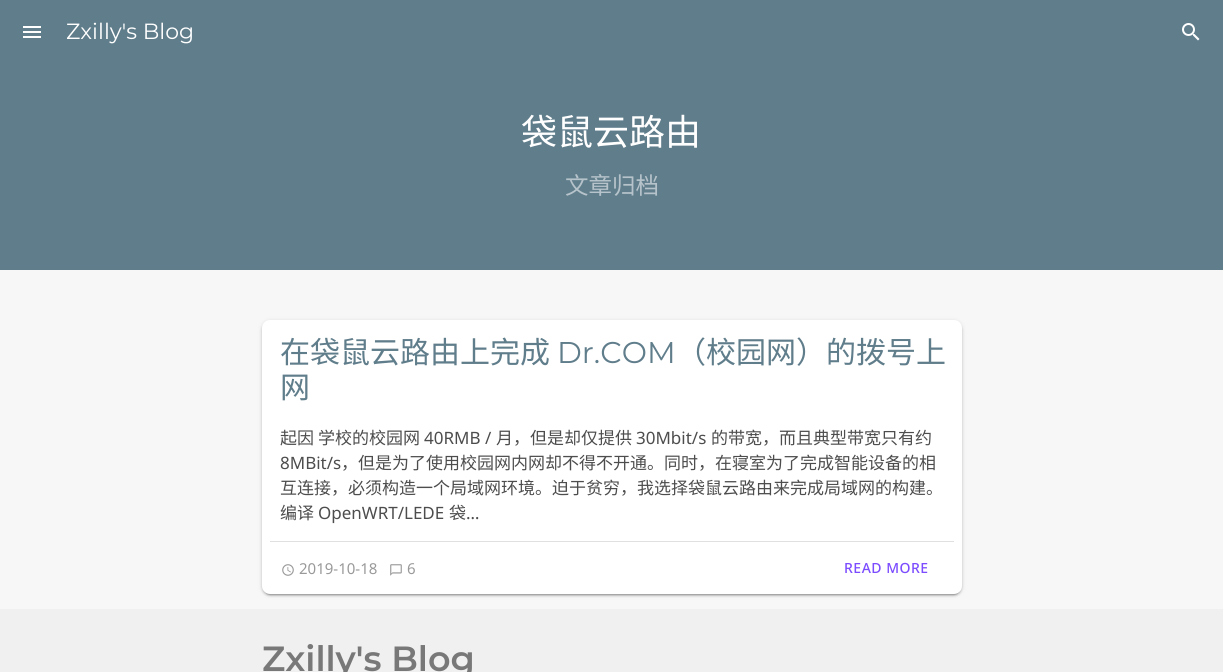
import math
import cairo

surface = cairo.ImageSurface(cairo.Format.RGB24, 1223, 672)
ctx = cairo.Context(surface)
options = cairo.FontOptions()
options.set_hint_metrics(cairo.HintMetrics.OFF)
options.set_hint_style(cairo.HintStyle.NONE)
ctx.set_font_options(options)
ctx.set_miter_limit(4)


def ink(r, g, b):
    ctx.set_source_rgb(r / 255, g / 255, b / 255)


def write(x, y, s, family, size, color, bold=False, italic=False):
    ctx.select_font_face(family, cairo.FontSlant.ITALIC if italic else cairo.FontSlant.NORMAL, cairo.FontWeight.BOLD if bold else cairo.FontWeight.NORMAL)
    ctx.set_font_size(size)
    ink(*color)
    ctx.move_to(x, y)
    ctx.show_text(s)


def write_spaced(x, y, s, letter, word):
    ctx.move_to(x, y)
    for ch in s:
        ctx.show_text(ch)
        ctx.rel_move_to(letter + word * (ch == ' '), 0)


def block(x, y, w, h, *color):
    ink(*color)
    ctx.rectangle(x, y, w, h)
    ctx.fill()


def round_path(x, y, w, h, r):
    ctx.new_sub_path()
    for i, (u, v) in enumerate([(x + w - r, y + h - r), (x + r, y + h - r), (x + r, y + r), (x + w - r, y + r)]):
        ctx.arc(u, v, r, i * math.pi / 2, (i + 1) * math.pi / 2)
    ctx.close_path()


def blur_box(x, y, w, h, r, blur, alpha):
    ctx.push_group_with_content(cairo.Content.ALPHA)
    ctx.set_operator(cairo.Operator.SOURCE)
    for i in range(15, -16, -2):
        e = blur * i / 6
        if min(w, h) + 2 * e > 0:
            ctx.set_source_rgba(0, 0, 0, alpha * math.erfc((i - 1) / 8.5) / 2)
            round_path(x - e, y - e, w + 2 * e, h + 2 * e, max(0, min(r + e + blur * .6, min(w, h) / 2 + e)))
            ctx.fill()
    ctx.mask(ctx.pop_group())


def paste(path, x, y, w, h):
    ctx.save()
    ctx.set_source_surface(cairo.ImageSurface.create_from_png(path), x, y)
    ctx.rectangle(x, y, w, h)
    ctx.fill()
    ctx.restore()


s1 = dict(family="Montserrat", size=22, color=(255, 255, 255))
s2 = dict(family="Noto Sans CJK SC", size=36, color=(255, 255, 255))
s3 = dict(family="Noto Sans CJK SC", size=23.5, color=(182, 195, 202))
s4 = dict(family="Noto Sans CJK SC", size=30, color=(96, 125, 139))
s5 = dict(family="Montserrat", size=30, color=(96, 125, 139))
s6 = dict(family="Noto Sans CJK SC", size=17, color=(77, 77, 77))
s7 = dict(family="Noto Sans", size=17, color=(77, 77, 77))
s8 = dict(family="Noto Sans", size=15, color=(153, 153, 153))
s9 = dict(family="Montserrat SemiBold", size=35, color=(120, 120, 120))

ink(247, 247, 247)
ctx.paint()
block(0, 0, 1223, 270, 96, 125, 139)
paste("pic1.png", 23, 26, 18, 12)
write(66, 39, "Zxilly's Blog", **s1)
paste("pic2.png", 1182, 23, 18, 18)
write(521, 145, "袋鼠云路由", **s2)
write(565, 194, "文章归档", **s3)
ink(0, 0, 0)
blur_box(262, 321, 700, 274, 8, 2.5, 0.12)
blur_box(262, 322, 700, 274, 8, 1, 0.14)
blur_box(264, 325, 696, 270, 6, 0.5, 0.2)
ink(255, 255, 255)
round_path(262, 320, 700, 274, 8)
ctx.fill()
write(280, 363, "在袋鼠云路由上完成", **s4)
write(557, 363, "Dr.COM", **s5)
write(676, 363, "（校园网）的拨号上", **s4)
write(280, 398, "网", **s4)
write(280, 444, "起因", **s6)
write(318, 444, "学校的校园网", **s6)
write(424, 444, "40RMB /", **s7)
write(496, 444, "月，但是却仅提供", **s6)
write(636, 444, "30Mbit/s", **s7)
write(711, 444, "的带宽，而且典型带宽只有约", **s6)
write(280, 469, "8MBit/s", **s7)
write(341, 469, "，但是为了使用校园网内网却不得不开通。同时，在寝室为了完成智能设备的相", **s6)
write(280, 494, "互连接，必须构造一个局域网环境。迫于贫穷，我选择袋鼠云路由来完成局域网的构建。", **s6)
write(280, 519, "编译", **s6)
write(318, 519, "OpenWRT/LEDE", **s7)
write(449, 519, "袋", **s6)
write(466, 519, "…", **s7)
block(270, 541, 684, 1, 224, 224, 224)
paste("pic3.png", 282, 564, 12, 12)
write(299, 574, "2019-10-18", **s8)
paste("pic4.png", 390, 564, 12, 12)
write(407, 574, "6", **s8)
ctx.select_font_face("Noto Sans Medium")
ctx.set_font_size(14)
ink(124, 77, 255)
write_spaced(844, 573, "READ MORE", 0.5, 0)
block(0, 609, 1223, 63, 240, 240, 240)
write(262, 671, "Zxilly's Blog", **s9)
surface.write_to_png("screenshot.png")
